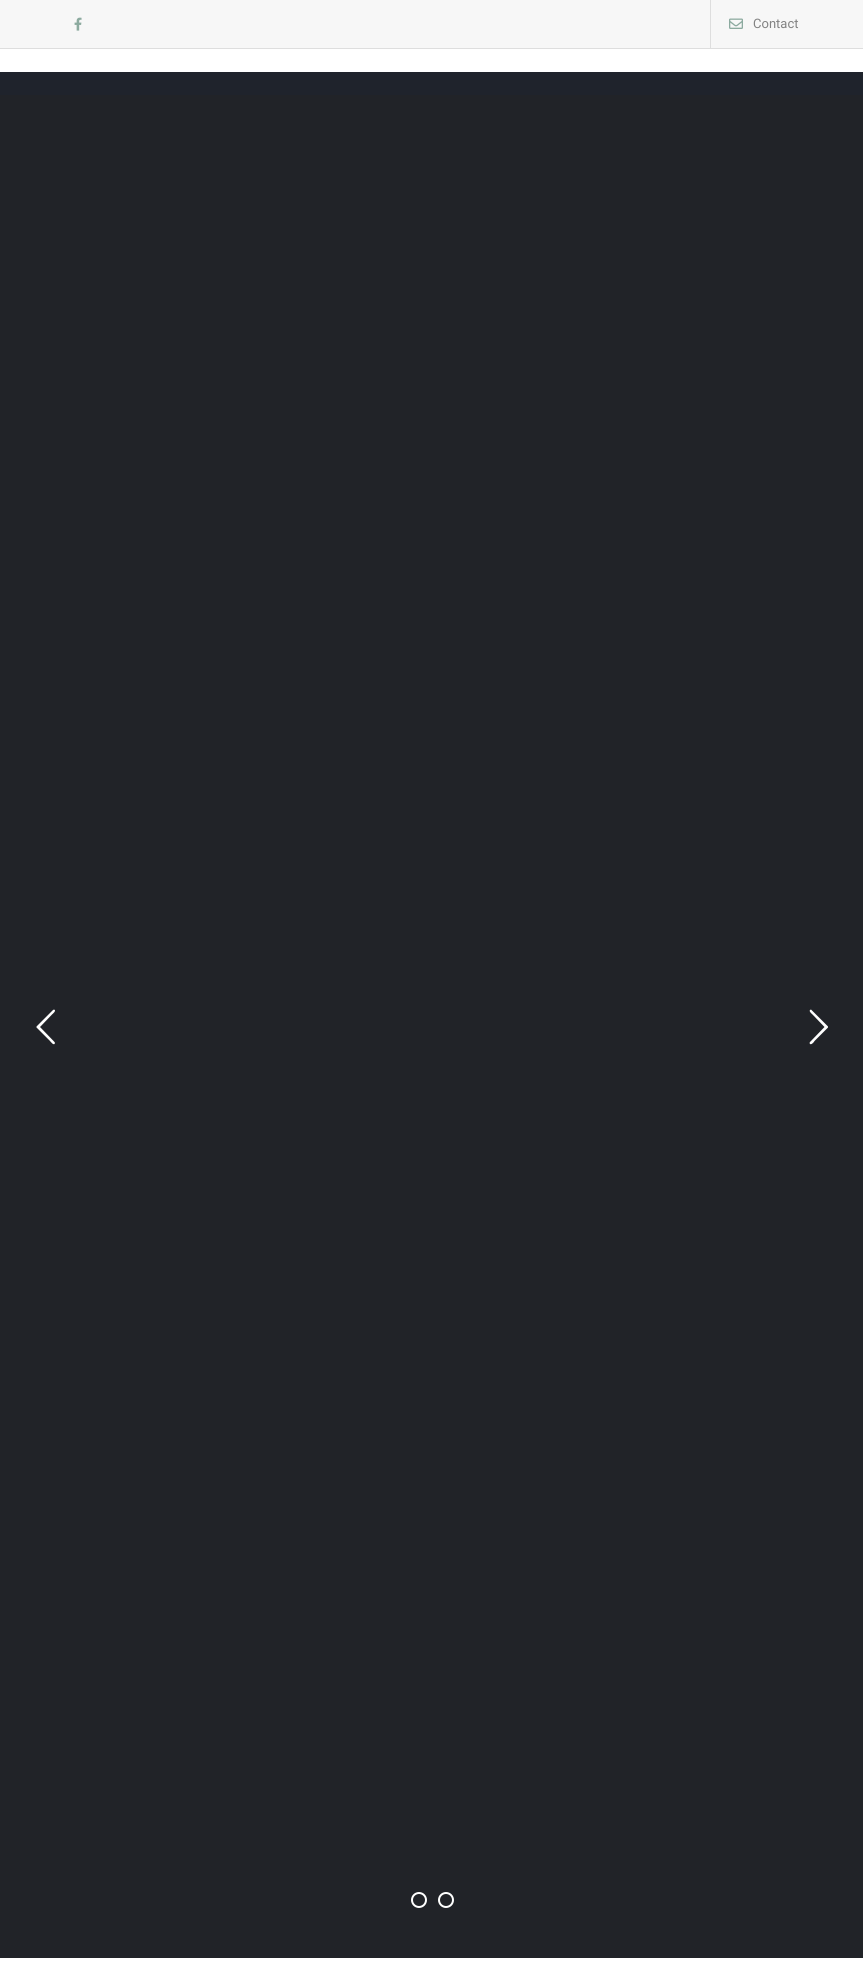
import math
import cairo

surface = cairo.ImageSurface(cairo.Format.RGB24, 863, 1981)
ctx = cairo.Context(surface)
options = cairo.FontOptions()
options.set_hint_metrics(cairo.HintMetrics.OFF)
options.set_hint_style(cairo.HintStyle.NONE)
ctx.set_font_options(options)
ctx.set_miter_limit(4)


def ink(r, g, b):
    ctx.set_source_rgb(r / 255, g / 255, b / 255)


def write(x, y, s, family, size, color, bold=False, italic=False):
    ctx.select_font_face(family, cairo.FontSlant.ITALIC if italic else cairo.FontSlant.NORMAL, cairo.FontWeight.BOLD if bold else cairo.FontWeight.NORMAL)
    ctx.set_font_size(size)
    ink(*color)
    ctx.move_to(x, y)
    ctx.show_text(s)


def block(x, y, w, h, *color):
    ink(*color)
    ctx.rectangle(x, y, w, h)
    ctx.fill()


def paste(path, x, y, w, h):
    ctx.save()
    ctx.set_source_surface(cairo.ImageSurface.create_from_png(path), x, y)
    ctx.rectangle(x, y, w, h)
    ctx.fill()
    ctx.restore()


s1 = dict(family="Roboto", size=13, color=(130, 130, 130))

ink(255, 255, 255)
ctx.paint()
block(0, 0, 863, 48, 247, 247, 247)
block(0, 48, 863, 1, 222, 222, 222)
paste("pic1.png", 74, 17, 8, 14)
block(710, 0, 1, 48, 222, 222, 222)
paste("pic2.png", 729, 18, 14, 11)
write(753, 28, "Contact", **s1)
block(0, 72, 863, 23, 31, 35, 44)
block(0, 95, 863, 1863, 33, 35, 40)
ink(255, 255, 255)
ctx.new_path()
ctx.move_to(54.5, 1042)
ctx.line_to(55, 1043)
ctx.curve_to(54, 1046.5, 50.5, 1041.5, 50, 1041)
ctx.line_to(36.5, 1027.5)
ctx.line_to(36.5, 1026.5)
ctx.line_to(53, 1010)
ctx.line_to(54, 1009.5)
ctx.curve_to(57, 1010.5, 52.5, 1014, 52, 1014.5)
ctx.line_to(40, 1027)
ctx.close_path()
ctx.fill()
ctx.new_path()
ctx.move_to(810, 1042)
ctx.line_to(824.5, 1027)
ctx.line_to(812.5, 1014.5)
ctx.curve_to(812, 1014, 807.5, 1010.5, 811, 1009.5)
ctx.line_to(811.5, 1010)
ctx.line_to(828, 1026.5)
ctx.line_to(828, 1027.5)
ctx.line_to(814.5, 1041)
ctx.curve_to(814.5, 1041.5, 810.5, 1046.5, 809.5, 1043)
ctx.close_path()
ctx.fill()
ctx.arc(419, 1900, 7, 0, 2 * math.pi)
ctx.stroke()
ctx.arc(446, 1900, 7, 0, 2 * math.pi)
ctx.stroke()
surface.write_to_png("screenshot.png")
